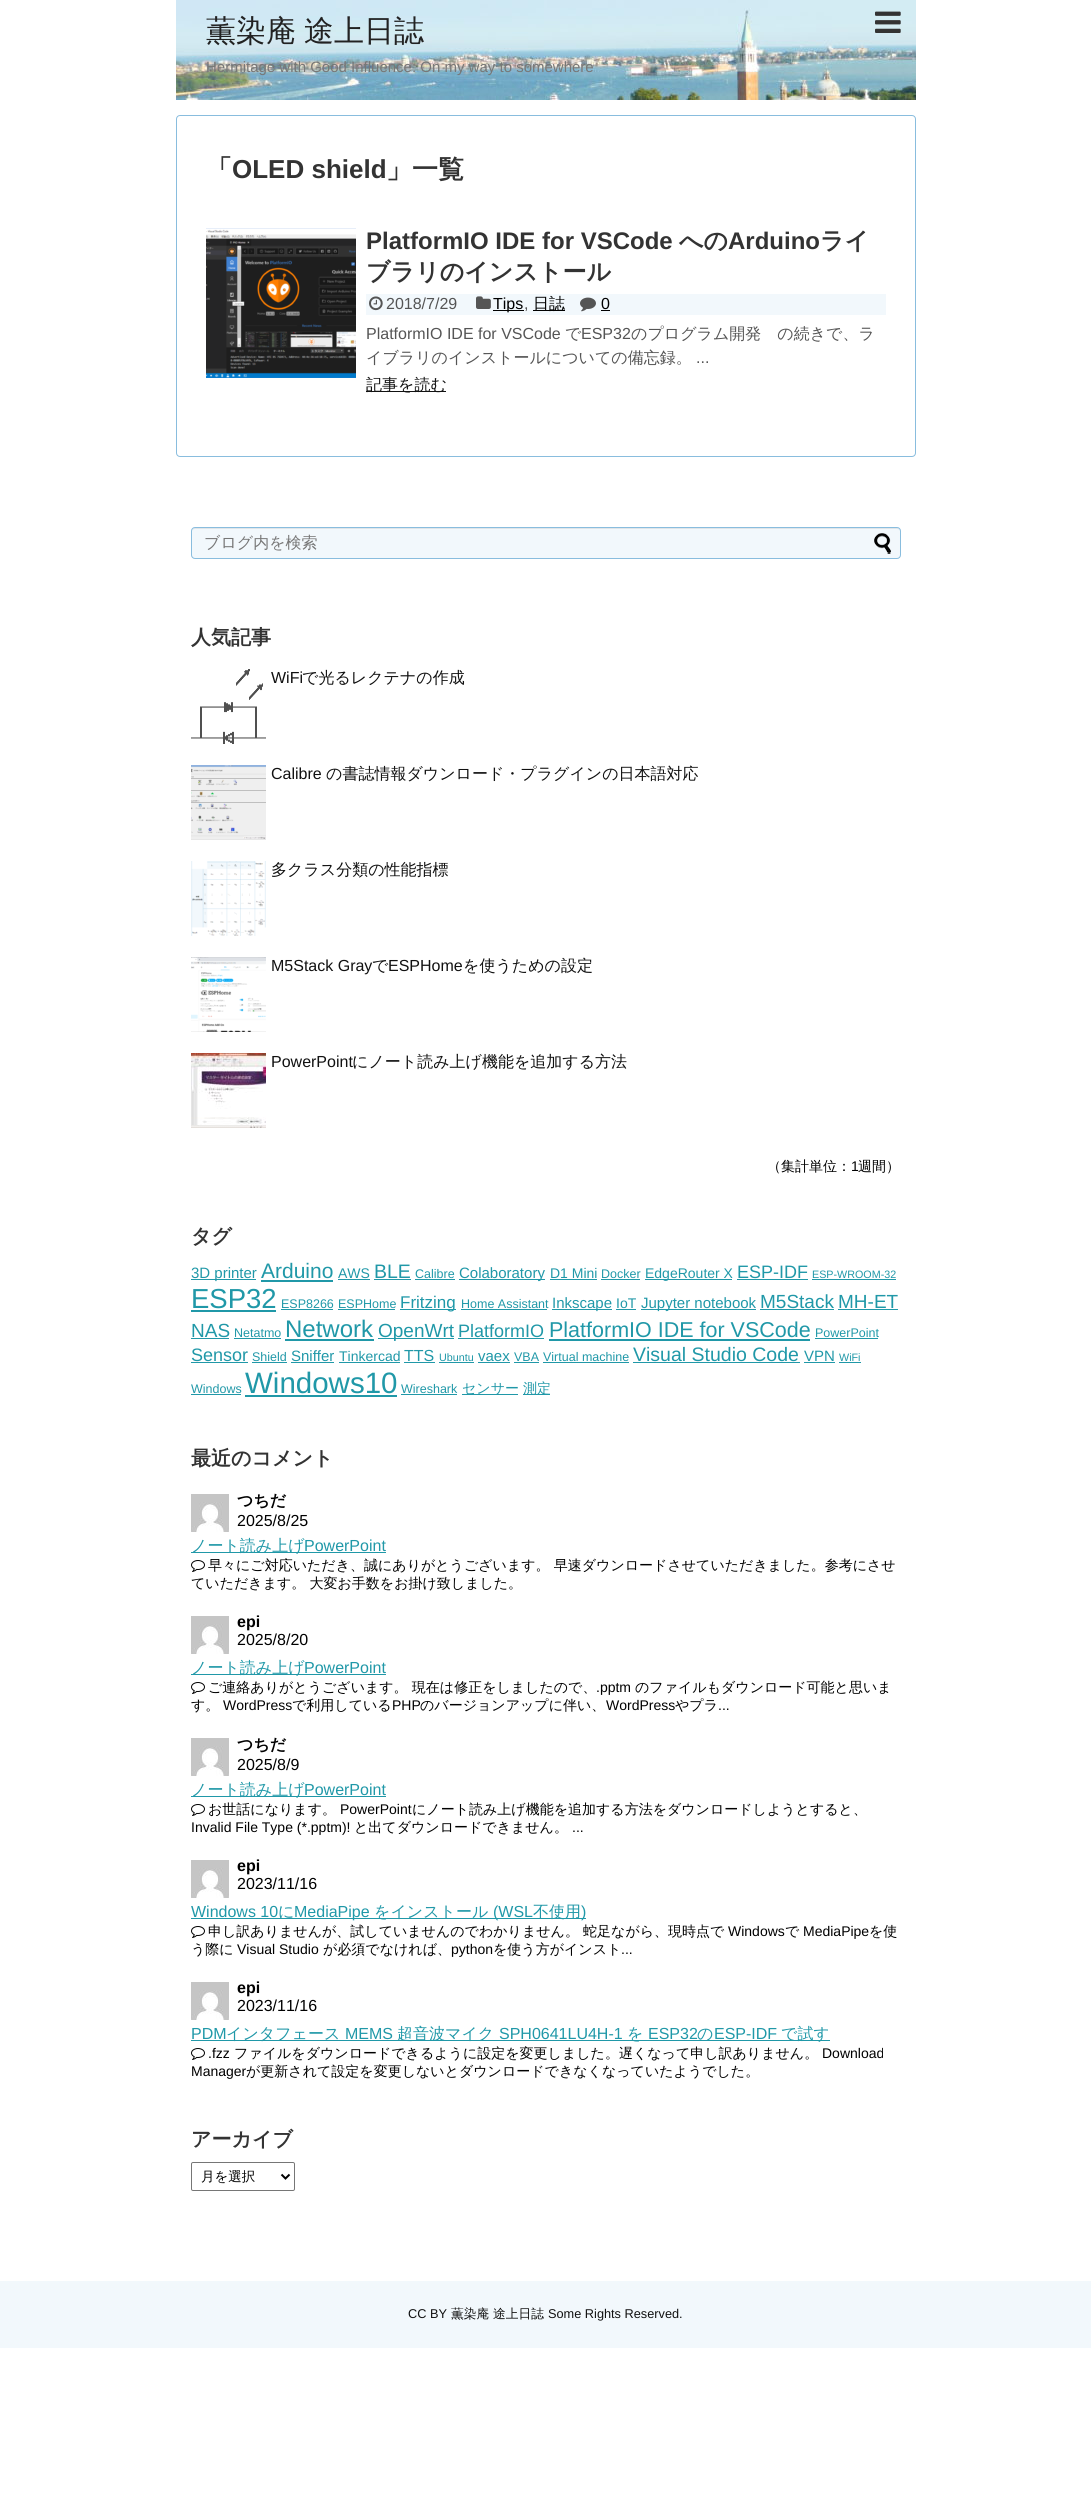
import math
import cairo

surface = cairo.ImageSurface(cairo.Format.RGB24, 1091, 2497)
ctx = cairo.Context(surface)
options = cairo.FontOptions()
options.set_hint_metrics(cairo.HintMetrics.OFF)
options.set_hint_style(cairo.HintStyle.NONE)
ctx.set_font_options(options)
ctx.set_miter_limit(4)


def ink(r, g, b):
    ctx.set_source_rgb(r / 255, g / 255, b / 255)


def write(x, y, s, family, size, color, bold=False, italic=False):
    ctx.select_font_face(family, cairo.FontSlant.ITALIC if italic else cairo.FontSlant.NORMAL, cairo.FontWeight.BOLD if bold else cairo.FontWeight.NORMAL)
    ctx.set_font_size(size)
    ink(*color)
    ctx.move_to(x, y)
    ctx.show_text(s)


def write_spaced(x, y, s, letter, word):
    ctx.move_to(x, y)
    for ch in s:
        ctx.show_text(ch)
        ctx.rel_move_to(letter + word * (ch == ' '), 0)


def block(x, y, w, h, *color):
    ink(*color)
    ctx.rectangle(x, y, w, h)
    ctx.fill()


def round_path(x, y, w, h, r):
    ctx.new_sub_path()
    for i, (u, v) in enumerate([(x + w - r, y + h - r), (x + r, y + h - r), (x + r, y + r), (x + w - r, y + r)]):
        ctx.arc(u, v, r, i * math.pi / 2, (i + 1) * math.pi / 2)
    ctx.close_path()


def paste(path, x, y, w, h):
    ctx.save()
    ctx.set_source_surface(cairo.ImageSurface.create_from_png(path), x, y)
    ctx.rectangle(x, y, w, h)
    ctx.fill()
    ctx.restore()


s1 = dict(family="Liberation Sans", size=15, color=(119, 119, 119))
s2 = dict(family="WenQuanYi Zen Hei", size=26, color=(51, 51, 51), bold=True)
s3 = dict(family="Liberation Sans", size=26, color=(51, 51, 51), bold=True)
s4 = dict(family="Liberation Sans", size=24, color=(51, 51, 51), bold=True)
s5 = dict(family="WenQuanYi Zen Hei", size=24, color=(51, 51, 51), bold=True)
s6 = dict(family="Liberation Sans", size=16, color=(85, 85, 85))
s7 = dict(family="Liberation Sans", size=16, color=(0, 0, 0))
s8 = dict(family="WenQuanYi Zen Hei Medium", size=16, color=(0, 0, 0))
s9 = dict(family="WenQuanYi Zen Hei Medium", size=16, color=(85, 85, 85))
s10 = dict(family="WenQuanYi Zen Hei Medium", size=16, color=(17, 17, 17))
s11 = dict(family="WenQuanYi Zen Hei Medium", size=16, color=(119, 119, 119))
s12 = dict(family="WenQuanYi Zen Hei", size=20, color=(51, 51, 51), bold=True)
s13 = dict(family="Liberation Sans", size=16, color=(17, 17, 17))
s14 = dict(family="WenQuanYi Zen Hei Medium", size=14, color=(0, 0, 0))
s15 = dict(family="Liberation Sans", size=14, color=(0, 0, 0))
s16 = dict(family="Liberation Sans", size=15, color=(32, 152, 168))
s17 = dict(family="Liberation Sans", size=21, color=(32, 152, 168))
s18 = dict(family="Liberation Sans", size=14, color=(32, 152, 168))
s19 = dict(family="Liberation Sans", size=19.5, color=(32, 152, 168))
s20 = dict(family="Liberation Sans", size=12.5, color=(32, 152, 168))
s21 = dict(family="Liberation Sans", size=18, color=(32, 152, 168))
s22 = dict(family="Liberation Sans", size=10.75, color=(32, 152, 168))
s23 = dict(family="Liberation Sans", size=27.5, color=(32, 152, 168))
s24 = dict(family="Liberation Sans", size=17, color=(32, 152, 168))
s25 = dict(family="Liberation Sans", size=19, color=(32, 152, 168))
s26 = dict(family="Liberation Sans", size=24, color=(32, 152, 168))
s27 = dict(family="Liberation Sans", size=21.5, color=(32, 152, 168))
s28 = dict(family="Liberation Sans", size=16, color=(32, 152, 168))
s29 = dict(family="Liberation Sans", size=29.5, color=(32, 152, 168))
s30 = dict(family="WenQuanYi Zen Hei Medium", size=14, color=(32, 152, 168))
s31 = dict(family="WenQuanYi Zen Hei", size=16, color=(0, 0, 0), bold=True)
s32 = dict(family="WenQuanYi Zen Hei Medium", size=16, color=(32, 152, 168))
s33 = dict(family="Liberation Sans", size=16, color=(0, 0, 0), bold=True)
s34 = dict(family="WenQuanYi Zen Hei Medium", size=13.5, color=(0, 0, 0))
s35 = dict(family="Liberation Sans", size=12.75, color=(17, 17, 17))
s36 = dict(family="WenQuanYi Zen Hei Medium", size=12.75, color=(17, 17, 17))

ink(255, 255, 255)
ctx.paint()
paste("pic1.png", 176, 0, 740, 100)
ctx.select_font_face("WenQuanYi Zen Hei Medium")
ctx.set_font_size(30)
ink(34, 34, 34)
write_spaced(206, 41, "薫染庵 途上日誌", 0, -1)
write(206, 72, "Hermitage with Good Influence: On my way to somewhere", **s1)
paste("pic2.png", 875, 11, 26, 22)
round_path(176.5, 115.5, 739, 341, 3.5)
ink(137, 189, 222)
ctx.set_line_width(1)
ctx.stroke()
write(206, 178, "「", **s2)
write(232, 178, "OLED shield", **s3)
write(386, 178, "」一覧", **s2)
paste("pic3.png", 206, 228, 150, 150)
write(366, 249, "PlatformIO IDE for VSCode", **s4)
write(679, 249, "への", **s5)
write(728, 249, "Arduino", **s4)
write(820, 249, "ライ", **s5)
write(366, 280, "ブラリのインストール", **s5)
block(366, 294, 520, 21, 242, 248, 252)
paste("pic4.png", 369, 296, 14, 15)
write(386, 309, "2018/7/29", **s6)
paste("pic5.png", 476, 296, 15, 13)
block(493, 310, 31, 1, 0, 0, 0)
write(493, 309, "Tips", **s7)
write(524, 309, ",", **s6)
block(533, 310, 32, 1, 0, 0, 0)
write(533, 309, "日誌", **s8)
paste("pic6.png", 580, 297, 16, 15)
write(601, 309, "0", **s7)
block(601, 310, 9, 1, 0, 0, 0)
write(366, 339, "PlatformIO IDE for VSCode", **s6)
write(565, 339, "で", **s9)
write(581, 339, "ESP32", **s6)
write(631, 339, "のプログラム開発　の続きで、ラ", **s9)
write(366, 363, "イブラリのインストールについての備忘録。", **s9)
write(696, 363, "...", **s6)
block(366, 391, 80, 1, 17, 17, 17)
write(366, 390, "記事を読む", **s10)
ink(242, 248, 252)
round_path(191, 527, 710, 32, 4)
ctx.fill()
ink(224, 229, 233)
ctx.new_path()
ctx.move_to(195, 529)
ctx.line_to(897, 529)
ctx.curve_to(899, 529, 900, 530, 900, 532)
ctx.curve_to(900, 530, 899, 528, 897, 528)
ctx.line_to(195, 528)
ctx.curve_to(193, 528, 192, 530, 192, 532)
ctx.curve_to(192, 530, 193, 529, 195, 529)
ctx.close_path()
ctx.fill()
round_path(191.5, 527.5, 709, 31, 3.5)
ink(137, 189, 222)
ctx.stroke()
write(204, 548, "ブログ内を検索", **s11)
paste("pic7.png", 874, 533, 17, 21)
write(191, 644, "人気記事", **s12)
paste("pic8.png", 191, 669, 75, 75)
write(271, 683, "WiFi", **s13)
write(302, 683, "で光るレクテナの作成", **s10)
paste("pic9.png", 191, 765, 75, 75)
write(271, 779, "Calibre", **s13)
write(326, 779, "の書誌情報ダウンロード・プラグインの日本語対応", **s10)
paste("pic10.png", 191, 861, 75, 75)
write(271, 875, "多クラス分類の性能指標", **s10)
paste("pic11.png", 191, 957, 75, 75)
write(271, 971, "M5Stack Gray", **s13)
write(372, 971, "で", **s10)
write(388, 971, "ESPHome", **s13)
write(463, 971, "を使うための設定", **s10)
paste("pic12.png", 191, 1053, 75, 75)
write(271, 1067, "PowerPoint", **s13)
write(352, 1067, "にノート読み上げ機能を追加する方法", **s10)
write(767, 1171, "（集計単位：", **s14)
write(851, 1171, "1", **s15)
write(858, 1171, "週間）", **s14)
write(191, 1243, "タグ", **s12)
block(191, 1279, 65, 1, 32, 152, 168)
write(191, 1278, "3D printer", **s16)
write(261, 1278, "Arduino", **s17)
block(261, 1280, 72, 2, 32, 152, 168)
write(338, 1278, "AWS", **s18)
block(338, 1279, 32, 1, 32, 152, 168)
write(374, 1278, "BLE", **s19)
block(374, 1279, 37, 1, 32, 152, 168)
write(415, 1278, "Calibre", **s20)
block(415, 1279, 40, 1, 32, 152, 168)
block(459, 1279, 86, 1, 32, 152, 168)
write(459, 1278, "Colaboratory", **s16)
write(550, 1278, "D1 Mini", **s18)
block(550, 1279, 47, 1, 32, 152, 168)
write(601, 1278, "Docker", **s20)
block(601, 1279, 39, 1, 32, 152, 168)
block(645, 1279, 87, 1, 32, 152, 168)
write(645, 1278, "EdgeRouter X", **s18)
write(737, 1278, "ESP-IDF", **s21)
block(737, 1279, 71, 1, 32, 152, 168)
write(812, 1278, "ESP-WROOM-32", **s22)
block(812, 1279, 84, 1, 32, 152, 168)
write(191, 1308, "ESP32", **s23)
block(191, 1310, 85, 2, 32, 152, 168)
write(281, 1308, "ESP8266", **s20)
block(281, 1309, 52, 1, 32, 152, 168)
write(338, 1308, "ESPHome", **s20)
block(338, 1309, 57, 1, 32, 152, 168)
block(400, 1309, 56, 1, 32, 152, 168)
write(400, 1308, "Fritzing", **s24)
write(461, 1308, "Home Assistant", **s20)
block(461, 1309, 86, 1, 32, 152, 168)
block(552, 1309, 60, 1, 32, 152, 168)
write(552, 1308, "Inkscape", **s16)
write(616, 1308, "IoT", **s18)
block(616, 1309, 20, 1, 32, 152, 168)
block(641, 1309, 115, 1, 32, 152, 168)
write(641, 1308, "Jupyter notebook", **s16)
write(760, 1308, "M5Stack", **s25)
block(760, 1309, 74, 1, 32, 152, 168)
write(838, 1308, "MH-ET", **s25)
block(838, 1309, 60, 1, 32, 152, 168)
write(191, 1337, "NAS", **s25)
block(191, 1338, 38, 1, 32, 152, 168)
write(234, 1337, "Netatmo", **s20)
block(234, 1338, 47, 1, 32, 152, 168)
write(285, 1337, "Network", **s26)
block(285, 1339, 89, 2, 32, 152, 168)
block(378, 1338, 76, 1, 32, 152, 168)
write(378, 1337, "OpenWrt", **s25)
write(458, 1337, "PlatformIO", **s21)
block(458, 1338, 86, 1, 32, 152, 168)
write(549, 1337, "PlatformIO IDE for VSCode", **s27)
block(549, 1339, 261, 2, 32, 152, 168)
write(815, 1337, "PowerPoint", **s20)
block(815, 1338, 63, 1, 32, 152, 168)
write(191, 1361, "Sensor", **s21)
block(191, 1362, 57, 1, 32, 152, 168)
write(252, 1361, "Shield", **s20)
block(252, 1362, 35, 1, 32, 152, 168)
write(291, 1361, "Sniffer", **s16)
block(291, 1362, 43, 1, 32, 152, 168)
write(339, 1361, "Tinkercad", **s18)
block(339, 1362, 61, 1, 32, 152, 168)
write(404, 1361, "TTS", **s28)
block(404, 1362, 31, 1, 32, 152, 168)
write(439, 1361, "Ubuntu", **s22)
block(439, 1362, 35, 1, 32, 152, 168)
write(478, 1361, "vaex", **s16)
block(478, 1362, 32, 1, 32, 152, 168)
write(514, 1361, "VBA", **s20)
block(514, 1362, 25, 1, 32, 152, 168)
write(543, 1361, "Virtual machine", **s20)
block(543, 1362, 86, 1, 32, 152, 168)
write(633, 1361, "Visual Studio Code", **s19)
block(633, 1362, 167, 1, 32, 152, 168)
write(804, 1361, "VPN", **s16)
block(804, 1362, 31, 1, 32, 152, 168)
write(839, 1361, "WiFi", **s22)
block(839, 1362, 22, 1, 32, 152, 168)
write(191, 1393, "Windows", **s20)
block(191, 1394, 50, 1, 32, 152, 168)
write(245, 1393, "Windows10", **s29)
block(245, 1395, 152, 2, 32, 152, 168)
write(401, 1393, "Wireshark", **s20)
block(401, 1394, 56, 1, 32, 152, 168)
block(462, 1394, 56, 1, 32, 152, 168)
write(462, 1393, "センサー", **s30)
block(523, 1394, 27, 1, 32, 152, 168)
write(523, 1393, "測定", **s30)
write(191, 1465, "最近のコメント", **s12)
paste("pic13.png", 191, 1494, 38, 38)
write(237, 1506, "つちだ", **s31)
write(237, 1526, "2025/8/25", **s7)
block(191, 1552, 195, 1, 32, 152, 168)
write(191, 1551, "ノート読み上げ", **s32)
write(304, 1551, "PowerPoint", **s28)
paste("pic14.png", 191, 1560, 14, 12)
write(208, 1570, "早々にご対応いただき、誠にありがとうございます。 早速ダウンロードさせていただきました。参考にさせ", **s14)
write(191, 1588, "ていただきます。 大変お手数をお掛け致しました。", **s14)
write(237, 1627, "epi", **s33)
write(237, 1645, "2025/8/20", **s7)
block(191, 1674, 195, 1, 32, 152, 168)
write(191, 1673, "ノート読み上げ", **s32)
write(304, 1673, "PowerPoint", **s28)
paste("pic14.png", 191, 1682, 14, 12)
write(208, 1692, "ご連絡ありがとうございます。 現在は修正をしましたので、", **s14)
write(596, 1692, ".pptm", **s15)
write(635, 1692, "のファイルもダウンロード可能と思いま", **s14)
write(191, 1710, "す。", **s14)
write(223, 1710, "WordPress", **s15)
write(292, 1710, "で利用している", **s14)
write(392, 1710, "PHP", **s15)
write(420, 1710, "のバージョンアップに伴い、", **s14)
write(606, 1710, "WordPress", **s15)
write(675, 1710, "やプラ", **s14)
write(718, 1710, "...", **s15)
paste("pic13.png", 191, 1616, 38, 38)
paste("pic13.png", 191, 1738, 38, 38)
write(237, 1750, "つちだ", **s31)
write(237, 1770, "2025/8/9", **s7)
block(191, 1796, 195, 1, 32, 152, 168)
write(191, 1795, "ノート読み上げ", **s32)
write(304, 1795, "PowerPoint", **s28)
paste("pic14.png", 191, 1804, 14, 12)
write(208, 1814, "お世話になります。", **s14)
write(340, 1814, "PowerPoint", **s15)
write(412, 1814, "にノート読み上げ機能を追加する方法をダウンロードしようとすると、", **s14)
write(191, 1832, "Invalid File Type (*.pptm)!", **s15)
write(354, 1832, "と出てダウンロードできません。", **s14)
write(572, 1832, "...", **s15)
write(237, 1871, "epi", **s33)
write(237, 1889, "2023/11/16", **s7)
write(191, 1917, "Windows 10", **s28)
block(191, 1918, 395, 1, 32, 152, 168)
write(278, 1917, "に", **s32)
write(294, 1917, "MediaPipe", **s28)
write(374, 1917, "をインストール", **s32)
write(493, 1917, "(WSL", **s28)
write(533, 1917, "不使用", **s32)
write(581, 1917, ")", **s28)
paste("pic14.png", 191, 1926, 14, 12)
write(208, 1936, "申し訳ありませんが、試していませんのでわかりません。 蛇足ながら、現時点で", **s14)
write(728, 1936, "Windows", **s15)
write(785, 1936, "で", **s14)
write(803, 1936, "MediaPipe", **s15)
write(869, 1936, "を使", **s14)
write(191, 1954, "う際に", **s14)
write(237, 1954, "Visual Studio", **s15)
write(323, 1954, "が必須でなければ、", **s14)
write(451, 1954, "python", **s15)
write(493, 1954, "を使う方がインスト", **s14)
write(621, 1954, "...", **s15)
paste("pic13.png", 191, 1860, 38, 38)
write(237, 1993, "epi", **s33)
write(237, 2011, "2023/11/16", **s7)
write(191, 2039, "PDM", **s28)
block(191, 2040, 639, 1, 32, 152, 168)
write(226, 2039, "インタフェース", **s32)
write(345, 2039, "MEMS", **s28)
write(397, 2039, "超音波マイク", **s32)
write(499, 2039, "SPH0641LU4H-1", **s28)
write(627, 2039, "を", **s32)
write(648, 2039, "ESP32", **s28)
write(697, 2039, "の", **s32)
write(714, 2039, "ESP-IDF", **s28)
write(781, 2039, "で試す", **s32)
paste("pic14.png", 191, 2048, 14, 12)
write(208, 2058, ".fzz", **s15)
write(234, 2058, "ファイルをダウンロードできるように設定を変更しました。遅くなって申し訳ありません。", **s14)
write(822, 2058, "Download", **s15)
write(191, 2076, "Manager", **s15)
write(246, 2076, "が更新されて設定を変更しないとダウンロードできなくなっていたようでした。", **s14)
paste("pic13.png", 191, 1982, 38, 38)
write(191, 2146, "アーカイブ", **s12)
round_path(191.5, 2162.5, 103, 28, 1.5)
ink(118, 118, 118)
ctx.stroke()
ctx.new_path()
ctx.move_to(281.5, 2174.5)
ctx.line_to(285.5, 2178.5)
ctx.line_to(289.5, 2174.5)
ink(0, 0, 0)
ctx.set_line_width(2)
ctx.stroke()
write(201, 2181, "月を選択", **s34)
block(0, 2281, 1091, 67, 242, 248, 252)
write(408, 2318, "CC BY", **s35)
write(451, 2318, "薫染庵 途上日誌", **s36)
write(548, 2318, "Some Rights Reserved.", **s35)
surface.write_to_png("screenshot.png")
